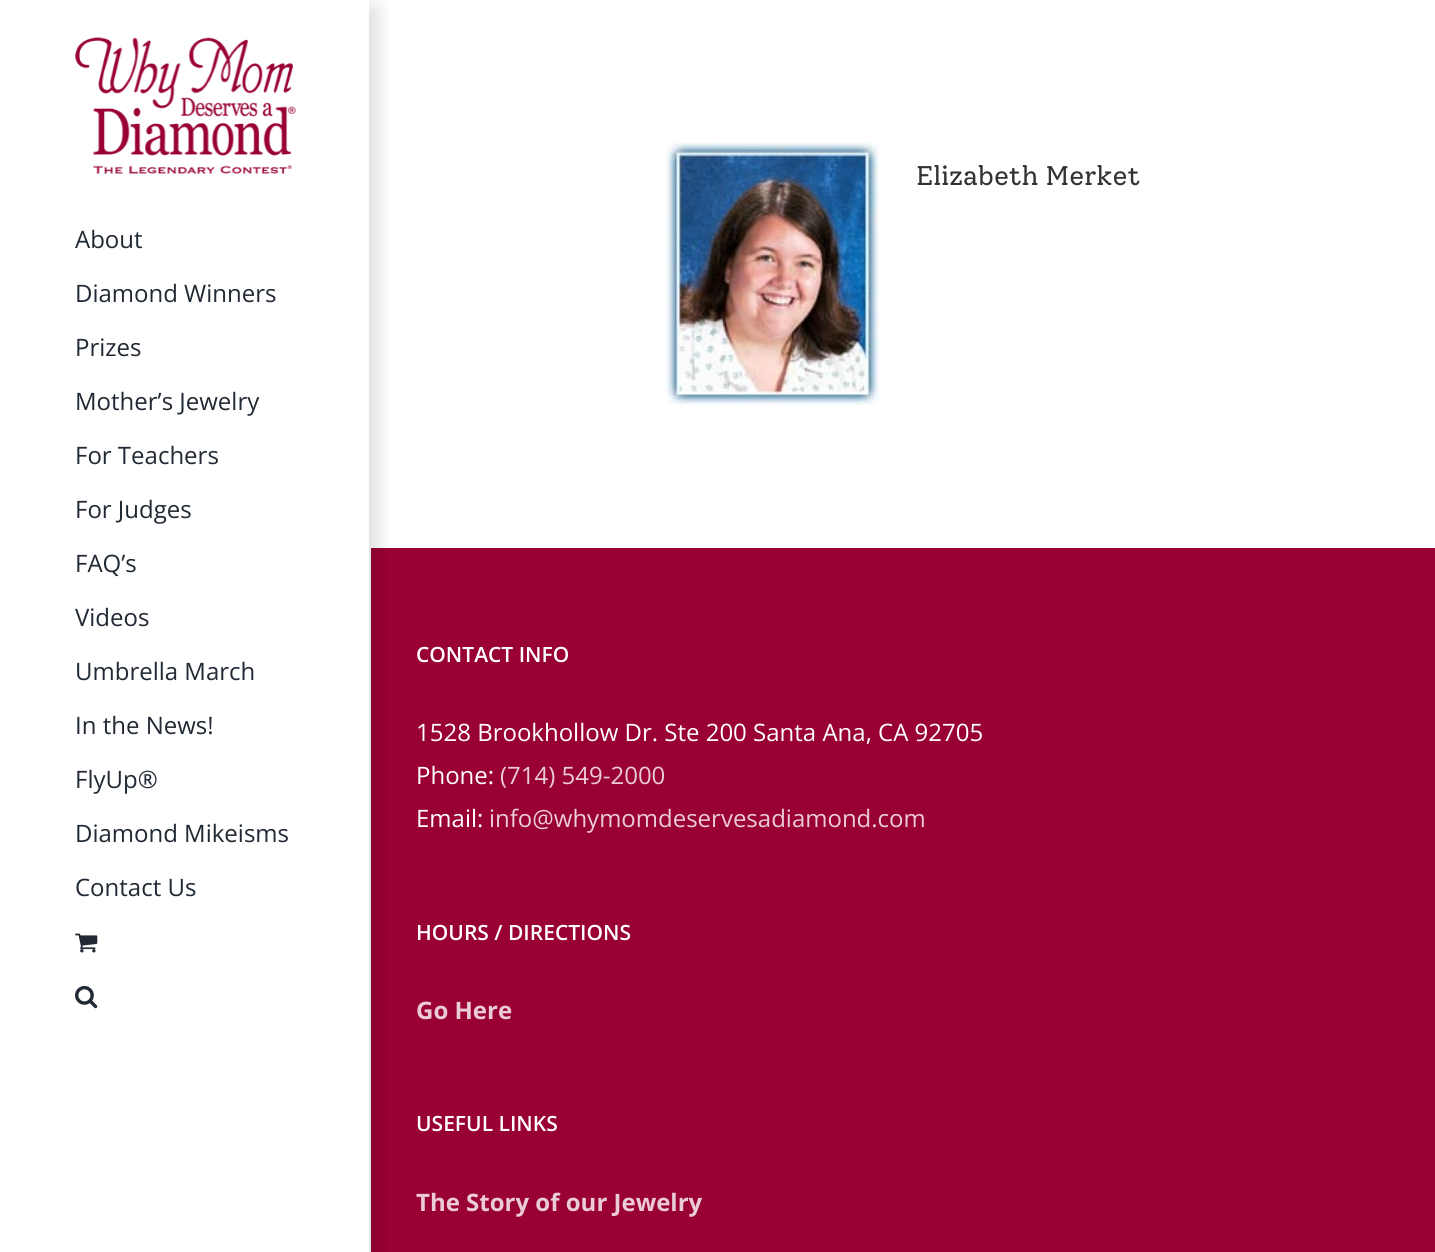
import math
import cairo

surface = cairo.ImageSurface(cairo.Format.RGB24, 1435, 1252)
ctx = cairo.Context(surface)
options = cairo.FontOptions()
options.set_hint_metrics(cairo.HintMetrics.OFF)
options.set_hint_style(cairo.HintStyle.NONE)
ctx.set_font_options(options)
ctx.set_miter_limit(4)


def ink(r, g, b):
    ctx.set_source_rgb(r / 255, g / 255, b / 255)


def write(x, y, s, family, size, color, bold=False, italic=False):
    ctx.select_font_face(family, cairo.FontSlant.ITALIC if italic else cairo.FontSlant.NORMAL, cairo.FontWeight.BOLD if bold else cairo.FontWeight.NORMAL)
    ctx.set_font_size(size)
    ink(*color)
    ctx.move_to(x, y)
    ctx.show_text(s)


def block(x, y, w, h, *color):
    ink(*color)
    ctx.rectangle(x, y, w, h)
    ctx.fill()


def round_path(x, y, w, h, r):
    ctx.new_sub_path()
    for i, (u, v) in enumerate([(x + w - r, y + h - r), (x + r, y + h - r), (x + r, y + r), (x + w - r, y + r)]):
        ctx.arc(u, v, r, i * math.pi / 2, (i + 1) * math.pi / 2)
    ctx.close_path()


def blur_box(x, y, w, h, r, blur, alpha):
    ctx.push_group_with_content(cairo.Content.ALPHA)
    ctx.set_operator(cairo.Operator.SOURCE)
    for i in range(15, -16, -2):
        e = blur * i / 6
        if min(w, h) + 2 * e > 0:
            ctx.set_source_rgba(0, 0, 0, alpha * math.erfc((i - 1) / 8.5) / 2)
            round_path(x - e, y - e, w + 2 * e, h + 2 * e, max(0, min(r + e + blur * .6, min(w, h) / 2 + e)))
            ctx.fill()
    ctx.mask(ctx.pop_group())


def paste(path, x, y, w, h):
    ctx.save()
    ctx.set_source_surface(cairo.ImageSurface.create_from_png(path), x, y)
    ctx.rectangle(x, y, w, h)
    ctx.fill()
    ctx.restore()


s1 = dict(family="Solway", size=27, color=(51, 51, 51))
s2 = dict(family="Open Sans", size=24, color=(33, 41, 52))
s3 = dict(family="Open Sans SemiBold", size=21, color=(255, 255, 255))
s4 = dict(family="Open Sans", size=24, color=(255, 255, 255))
s5 = dict(family="Open Sans", size=24, color=(235, 204, 214))
s6 = dict(family="Open Sans", size=24, color=(235, 204, 214), bold=True)

ink(255, 255, 255)
ctx.paint()
paste("pic1.png", 666, 142, 213, 263)
write(916, 185, "Elizabeth Merket", **s1)
paste("pic2.png", 75, 37, 221, 137)
write(75, 248, "About", **s2)
write(75, 302, "Diamond Winners", **s2)
write(75, 356, "Prizes", **s2)
write(75, 410, "Mother’s Jewelry", **s2)
write(75, 464, "For Teachers", **s2)
write(75, 518, "For Judges", **s2)
write(75, 572, "FAQ’s", **s2)
write(75, 626, "Videos", **s2)
write(75, 680, "Umbrella March", **s2)
write(75, 734, "In the News!", **s2)
write(75, 788, "FlyUp®", **s2)
write(75, 842, "Diamond Mikeisms", **s2)
write(75, 896, "Contact Us", **s2)
paste("pic3.png", 75, 933, 23, 20)
paste("pic4.png", 75, 985, 23, 24)
block(371, 548, 1064, 704, 153, 0, 51)
ctx.save()
ctx.rectangle(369, 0, 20, 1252)
ctx.clip()
ink(0, 0, 0)
blur_box(354, 8, 23, 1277, 0, 11, 0.14)
ctx.restore()
write(416, 662, "CONTACT INFO", **s3)
write(416, 741, "1528 Brookhollow Dr. Ste 200 Santa Ana, CA 92705", **s4)
write(416, 784, "Phone:", **s4)
write(500, 784, "(714) 549-2000", **s5)
write(416, 827, "Email:", **s4)
write(489, 827, "info@whymomdeservesadiamond.com", **s5)
write(416, 940, "HOURS / DIRECTIONS", **s3)
write(416, 1019, "Go Here", **s6)
write(416, 1131, "USEFUL LINKS", **s3)
write(416, 1211, "The Story of our Jewelry", **s6)
surface.write_to_png("screenshot.png")
